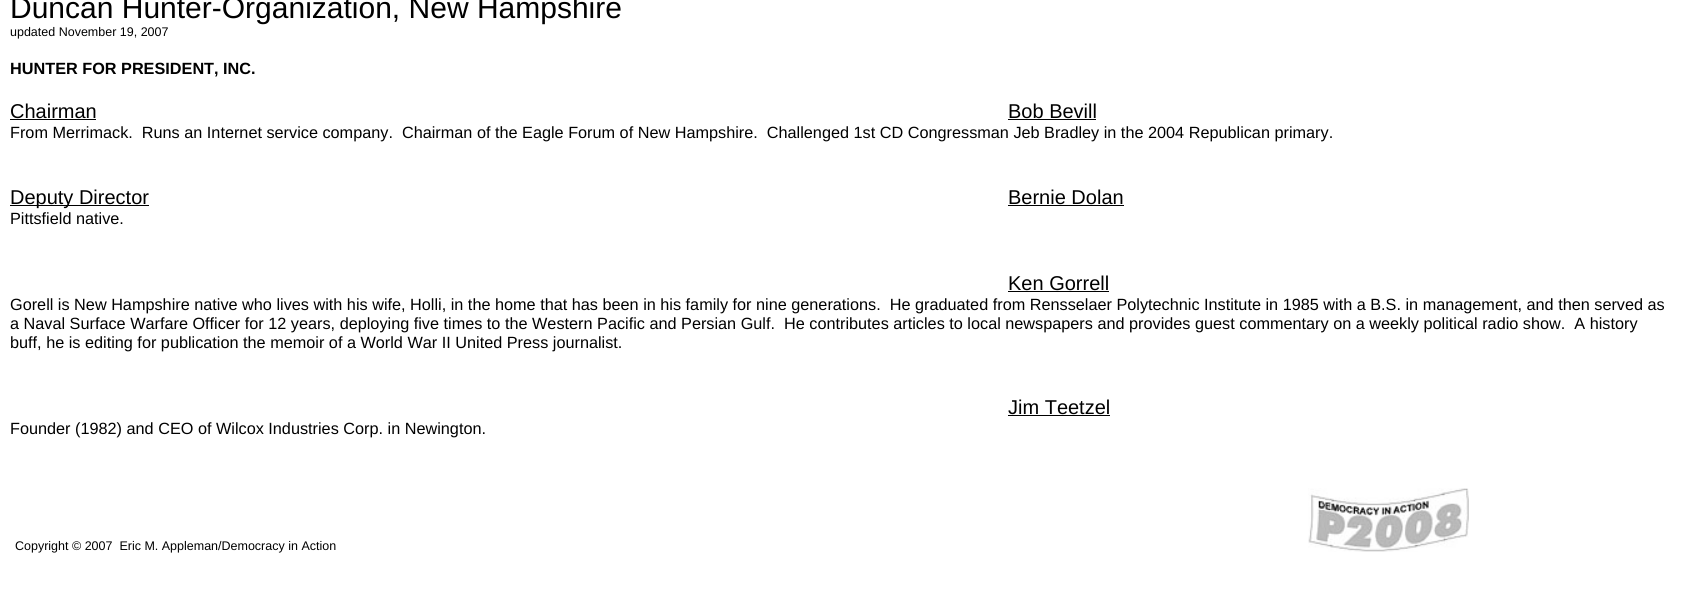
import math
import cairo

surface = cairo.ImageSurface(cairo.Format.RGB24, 1682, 593)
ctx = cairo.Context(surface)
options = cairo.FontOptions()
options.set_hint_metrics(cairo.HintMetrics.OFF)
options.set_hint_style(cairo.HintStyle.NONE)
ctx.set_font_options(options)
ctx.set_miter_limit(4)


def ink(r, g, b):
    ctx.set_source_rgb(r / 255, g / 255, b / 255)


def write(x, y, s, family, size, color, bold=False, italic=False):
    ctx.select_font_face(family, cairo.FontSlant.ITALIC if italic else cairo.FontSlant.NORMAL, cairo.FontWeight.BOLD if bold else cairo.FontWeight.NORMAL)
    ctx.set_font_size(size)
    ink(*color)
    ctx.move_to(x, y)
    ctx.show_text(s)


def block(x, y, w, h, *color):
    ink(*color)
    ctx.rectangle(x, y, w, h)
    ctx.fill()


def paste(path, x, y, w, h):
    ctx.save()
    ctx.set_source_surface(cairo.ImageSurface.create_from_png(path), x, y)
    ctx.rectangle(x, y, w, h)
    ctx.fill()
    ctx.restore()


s1 = dict(family="Liberation Sans", size=30, color=(0, 0, 0))
s2 = dict(family="Liberation Sans", size=12.5, color=(0, 0, 0))
s3 = dict(family="Liberation Sans", size=16.25, color=(0, 0, 0), bold=True)
s4 = dict(family="Liberation Sans", size=20, color=(0, 0, 0))
s5 = dict(family="Liberation Sans", size=16.25, color=(0, 0, 0))

ink(255, 255, 255)
ctx.paint()
write(10, 18, "Duncan Hunter-Organization, New Hampshire", **s1)
write(10, 36, "updated November 19, 2007", **s2)
write(10, 74, "HUNTER FOR PRESIDENT, INC.", **s3)
write(10, 118, "Chairman", **s4)
block(10, 119, 86, 1, 0, 0, 0)
write(1008, 118, "Bob Bevill", **s4)
block(1008, 119, 88, 1, 0, 0, 0)
write(10, 138, "From Merrimack.  Runs an Internet service company.  Chairman of the Eagle Forum of New Hampshire.  Challenged 1st CD Congressman Jeb Bradley in the 2004 Republican primary.", **s5)
block(10, 205, 139, 1, 0, 0, 0)
write(10, 204, "Deputy Director", **s4)
write(1008, 204, "Bernie Dolan", **s4)
block(1008, 205, 116, 1, 0, 0, 0)
write(10, 224, "Pittsfield native.", **s5)
write(1008, 290, "Ken Gorrell", **s4)
block(1008, 291, 101, 1, 0, 0, 0)
write(10, 310, "Gorell is New Hampshire native who lives with his wife, Holli, in the home that has been in his family for nine generations.  He graduated from Rensselaer Polytechnic Institute in 1985 with a B.S. in management, and then served as", **s5)
write(10, 329, "a Naval Surface Warfare Officer for 12 years, deploying five times to the Western Pacific and Persian Gulf.  He contributes articles to local newspapers and provides guest commentary on a weekly political radio show.  A history", **s5)
write(10, 348, "buff, he is editing for publication the memoir of a World War II United Press journalist.", **s5)
write(1008, 414, "Jim Teetzel", **s4)
block(1008, 415, 102, 1, 0, 0, 0)
write(10, 434, "Founder (1982) and CEO of Wilcox Industries Corp. in Newington.", **s5)
write(15, 550, "Copyright © 2007  Eric M. Appleman/Democracy in Action", **s2)
paste("pic1.png", 1308, 488, 161, 64)
surface.write_to_png("screenshot.png")
